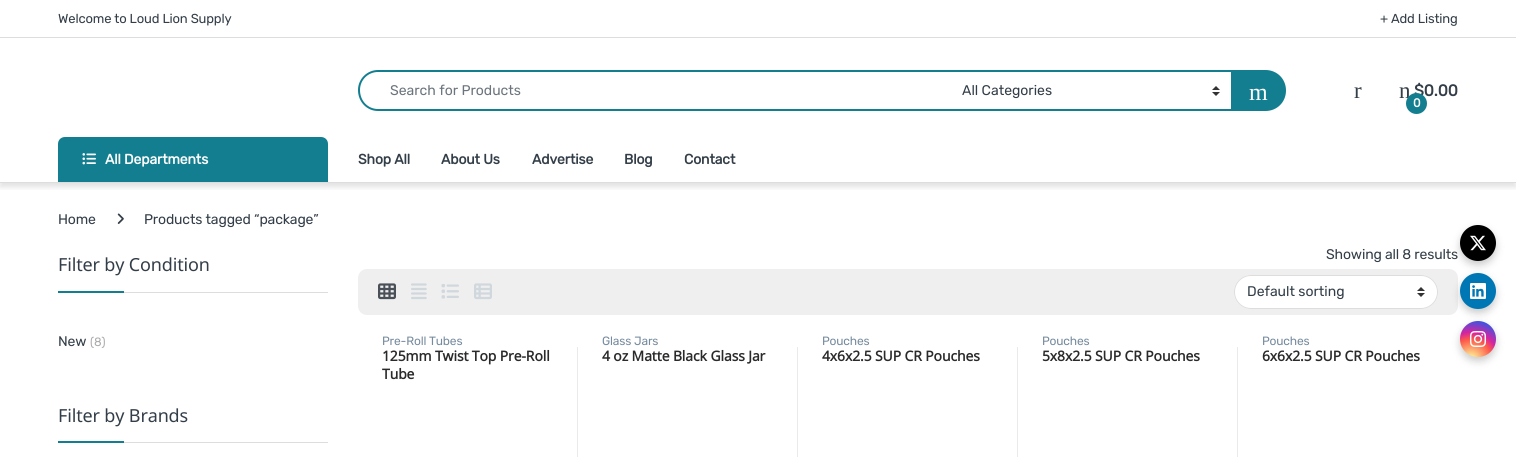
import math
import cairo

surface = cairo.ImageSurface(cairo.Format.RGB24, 1516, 457)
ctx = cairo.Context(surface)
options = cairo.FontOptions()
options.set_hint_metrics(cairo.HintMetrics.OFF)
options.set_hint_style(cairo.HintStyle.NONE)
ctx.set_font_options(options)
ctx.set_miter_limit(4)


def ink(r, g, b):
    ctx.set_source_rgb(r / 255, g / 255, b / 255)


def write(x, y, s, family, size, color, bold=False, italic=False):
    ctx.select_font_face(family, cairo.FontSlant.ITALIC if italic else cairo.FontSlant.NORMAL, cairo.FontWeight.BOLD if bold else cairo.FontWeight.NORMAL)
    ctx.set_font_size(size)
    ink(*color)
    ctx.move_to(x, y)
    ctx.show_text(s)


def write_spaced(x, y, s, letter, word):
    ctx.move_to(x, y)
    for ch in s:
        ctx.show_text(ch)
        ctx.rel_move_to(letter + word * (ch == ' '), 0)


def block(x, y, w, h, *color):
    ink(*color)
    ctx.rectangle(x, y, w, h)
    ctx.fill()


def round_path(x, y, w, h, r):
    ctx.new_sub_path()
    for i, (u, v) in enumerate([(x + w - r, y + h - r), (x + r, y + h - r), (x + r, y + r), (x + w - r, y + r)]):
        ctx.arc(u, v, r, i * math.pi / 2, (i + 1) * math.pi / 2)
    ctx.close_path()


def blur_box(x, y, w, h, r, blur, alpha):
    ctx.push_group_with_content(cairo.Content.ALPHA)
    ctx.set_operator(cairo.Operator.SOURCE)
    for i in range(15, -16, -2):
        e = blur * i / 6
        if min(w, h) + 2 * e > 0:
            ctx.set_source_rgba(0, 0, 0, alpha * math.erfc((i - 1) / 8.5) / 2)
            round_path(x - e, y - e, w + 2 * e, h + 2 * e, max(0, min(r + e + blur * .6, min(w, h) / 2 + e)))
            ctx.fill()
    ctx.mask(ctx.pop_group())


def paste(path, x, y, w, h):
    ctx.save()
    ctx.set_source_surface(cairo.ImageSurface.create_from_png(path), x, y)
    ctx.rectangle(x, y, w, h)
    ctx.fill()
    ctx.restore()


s1 = dict(family="Rubik Light", size=14, color=(108, 117, 125))
s2 = dict(family="Rubik Light", size=14, color=(51, 62, 72))
s3 = dict(family="Liberation Serif", size=24, color=(255, 255, 255))

ink(255, 255, 255)
ctx.paint()
block(0, 37, 1516, 1, 221, 221, 221)
ctx.select_font_face("Rubik Light")
ctx.set_font_size(13)
ink(51, 62, 72)
write_spaced(58, 23, "Welcome to Loud Lion Supply", -0.15, 0)
write_spaced(1380, 23, "+ Add Listing", -0.15, 0)
ctx.save()
ctx.rectangle(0, 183, 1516, 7)
ctx.clip()
ink(0, 0, 0)
blur_box(0, 42, 1516, 145, 0, 3, 0.12)
ctx.restore()
block(0, 182, 1516, 1, 221, 221, 221)
ink(18, 126, 143)
ctx.set_fill_rule(cairo.FillRule.EVEN_ODD)
ctx.new_path()
ctx.move_to(378, 70)
ctx.line_to(951, 70)
ctx.line_to(951, 111)
ctx.line_to(378, 111)
ctx.curve_to(367, 111, 358, 102, 358, 90)
ctx.curve_to(358, 79, 367, 70, 378, 70)
ctx.close_path()
ctx.move_to(378, 72)
ctx.line_to(951, 72)
ctx.line_to(951, 109)
ctx.line_to(378, 109)
ctx.curve_to(368, 109, 360, 101, 360, 90)
ctx.curve_to(360, 80, 368, 72, 378, 72)
ctx.close_path()
ctx.fill()
write(390, 95, "Search for Products", **s1)
block(950, 70, 282, 2, 18, 126, 143)
block(950, 109, 282, 2, 18, 126, 143)
paste("pic1.png", 1212, 86, 8, 10)
write(962, 95, "All Categories", **s2)
ink(18, 126, 143)
ctx.new_path()
ctx.move_to(1232, 71)
ctx.line_to(1265.5, 71)
ctx.curve_to(1276.5, 71, 1285, 79.5, 1285, 90.5)
ctx.curve_to(1285, 101.5, 1276.5, 110, 1265.5, 110)
ctx.line_to(1232, 110)
ctx.close_path()
ctx.fill_preserve()
ctx.stroke()
write(1249, 100, "m", **s3)
ctx.set_font_size(23)
ink(51, 62, 72)
write_spaced(1354, 98, "r", -0.15, 0)
write_spaced(1399, 98, "n", -0.15, 0)
ctx.select_font_face("Rubik", cairo.FontSlant.NORMAL, cairo.FontWeight.BOLD)
ctx.set_font_size(16)
write_spaced(1414, 96, "$0.00", -0.15, 0)
ink(18, 126, 143)
ctx.new_path()
ctx.arc(1416.5, 103.5, 10.5, 0, 2 * math.pi)
ctx.fill()
ctx.set_font_size(12)
ink(255, 255, 255)
write_spaced(1413, 107, "0", -0.15, 0)
ink(18, 126, 143)
ctx.new_path()
ctx.move_to(65, 137)
ctx.line_to(321, 137)
ctx.curve_to(325, 137, 328, 140, 328, 144)
ctx.line_to(328, 182)
ctx.line_to(58, 182)
ctx.line_to(58, 144)
ctx.curve_to(58, 140, 61, 137, 65, 137)
ctx.close_path()
ctx.fill()
paste("pic2.png", 82, 153, 14, 12)
ctx.set_font_size(14)
ink(255, 255, 255)
write_spaced(105, 164, "All Departments", -0.15, 0)
ink(51, 62, 72)
write_spaced(358, 164, "Shop All", -0.15, 0)
write_spaced(441, 164, "About Us", -0.15, 0)
write_spaced(532, 164, "Advertise", -0.15, 0)
write_spaced(624, 164, "Blog", -0.15, 0)
write_spaced(684, 164, "Contact", -0.15, 0)
ctx.select_font_face("Rubik Light")
write_spaced(58, 224, "Home", -0.15, 0)
paste("pic3.png", 117, 213, 7, 11)
write_spaced(144, 224, "Products tagged “package”", -0.15, 0)
block(124, 292, 204, 1, 221, 221, 221)
ctx.select_font_face("Noto Sans")
ctx.set_font_size(18)
ink(51, 62, 72)
write_spaced(58, 271, "Filter by Condition", -0.15, 0)
block(58, 291, 66, 2, 18, 126, 143)
ctx.select_font_face("Rubik Light")
ctx.set_font_size(14)
ink(51, 62, 72)
write_spaced(58, 346, "New", -0.15, 0)
ctx.set_font_size(12)
ink(170, 170, 170)
write_spaced(90, 346, "(8)", -0.15, 0)
block(124, 442, 204, 1, 221, 221, 221)
ctx.select_font_face("Noto Sans")
ctx.set_font_size(18)
ink(51, 62, 72)
write_spaced(58, 422, "Filter by Brands", -0.15, 0)
block(58, 441, 66, 2, 18, 126, 143)
ctx.select_font_face("Rubik Light")
ctx.set_font_size(14)
ink(51, 62, 72)
write_spaced(1326, 259, "Showing all 8 results", -0.15, 0)
ink(239, 239, 239)
round_path(358, 269, 1100, 46, 9)
ctx.fill()
paste("pic4.png", 378, 283, 18, 17)
paste("pic5.png", 411, 283, 16, 17)
paste("pic6.png", 441, 284, 18, 15)
paste("pic7.png", 474, 283, 18, 17)
ink(255, 255, 255)
round_path(1234, 275, 204, 34, 17)
ctx.fill()
paste("pic1.png", 1417, 287, 8, 10)
round_path(1234.5, 275.5, 203, 33, 16.5)
ink(221, 221, 221)
ctx.set_line_width(1)
ctx.stroke()
write(1247, 296, "Default sorting", **s2)
ctx.set_font_size(12)
ink(118, 139, 158)
write_spaced(382, 345, "Pre-Roll Tubes", -0.15, 0)
ctx.select_font_face("Noto Sans", cairo.FontSlant.NORMAL, cairo.FontWeight.BOLD)
ctx.set_font_size(14)
ink(42, 42, 42)
write_spaced(382, 361, "125mm Twist Top Pre-Roll", -0.15, 0)
write_spaced(382, 379, "Tube", -0.15, 0)
block(577, 347, 1, 110, 234, 234, 234)
ctx.select_font_face("Rubik Light")
ctx.set_font_size(12)
ink(118, 139, 158)
write_spaced(602, 345, "Glass Jars", -0.15, 0)
ctx.select_font_face("Noto Sans", cairo.FontSlant.NORMAL, cairo.FontWeight.BOLD)
ctx.set_font_size(14)
ink(42, 42, 42)
write_spaced(602, 361, "4 oz Matte Black Glass Jar", -0.15, 0)
block(797, 347, 1, 110, 234, 234, 234)
ctx.select_font_face("Rubik Light")
ctx.set_font_size(12)
ink(118, 139, 158)
write_spaced(822, 345, "Pouches", -0.15, 0)
ctx.select_font_face("Noto Sans", cairo.FontSlant.NORMAL, cairo.FontWeight.BOLD)
ctx.set_font_size(14)
ink(42, 42, 42)
write_spaced(822, 361, "4x6x2.5 SUP CR Pouches", -0.15, 0)
block(1017, 347, 1, 110, 234, 234, 234)
ctx.select_font_face("Rubik Light")
ctx.set_font_size(12)
ink(118, 139, 158)
write_spaced(1042, 345, "Pouches", -0.15, 0)
ctx.select_font_face("Noto Sans", cairo.FontSlant.NORMAL, cairo.FontWeight.BOLD)
ctx.set_font_size(14)
ink(42, 42, 42)
write_spaced(1042, 361, "5x8x2.5 SUP CR Pouches", -0.15, 0)
block(1237, 347, 1, 110, 234, 234, 234)
ctx.select_font_face("Rubik Light")
ctx.set_font_size(12)
ink(118, 139, 158)
write_spaced(1262, 345, "Pouches", -0.15, 0)
ctx.select_font_face("Noto Sans", cairo.FontSlant.NORMAL, cairo.FontWeight.BOLD)
ctx.set_font_size(14)
ink(42, 42, 42)
write_spaced(1262, 361, "6x6x2.5 SUP CR Pouches", -0.15, 0)
ink(0, 0, 0)
blur_box(1460, 229, 36, 36, 18, 4, 0.2)
ink(0, 0, 0)
ctx.arc(1478, 243, 18, 0, 2 * math.pi)
ctx.fill()
paste("pic8.png", 1470, 235, 16, 16)
ink(0, 0, 0)
blur_box(1460, 277, 36, 36, 18, 4, 0.2)
ink(0, 119, 181)
ctx.arc(1478, 291, 18, 0, 2 * math.pi)
ctx.fill()
paste("pic9.png", 1470, 283, 16, 16)
ink(0, 0, 0)
blur_box(1460, 325, 36, 36, 18, 4, 0.2)
gradient = cairo.RadialGradient(1471, 360, 0, 1471, 360, 46)
gradient.add_color_stop_rgba(0, 0.992, 0.957, 0.592, 1)
gradient.add_color_stop_rgba(0.05, 0.992, 0.957, 0.592, 1)
gradient.add_color_stop_rgba(0.45, 0.992, 0.349, 0.286, 1)
gradient.add_color_stop_rgba(0.6, 0.839, 0.141, 0.624, 1)
gradient.add_color_stop_rgba(0.9, 0.157, 0.353, 0.922, 1)
ctx.set_source(gradient)
ctx.arc(1478, 339, 18, 0, 2 * math.pi)
ctx.fill()
paste("pic10.png", 1470, 331, 16, 16)
surface.write_to_png("screenshot.png")
